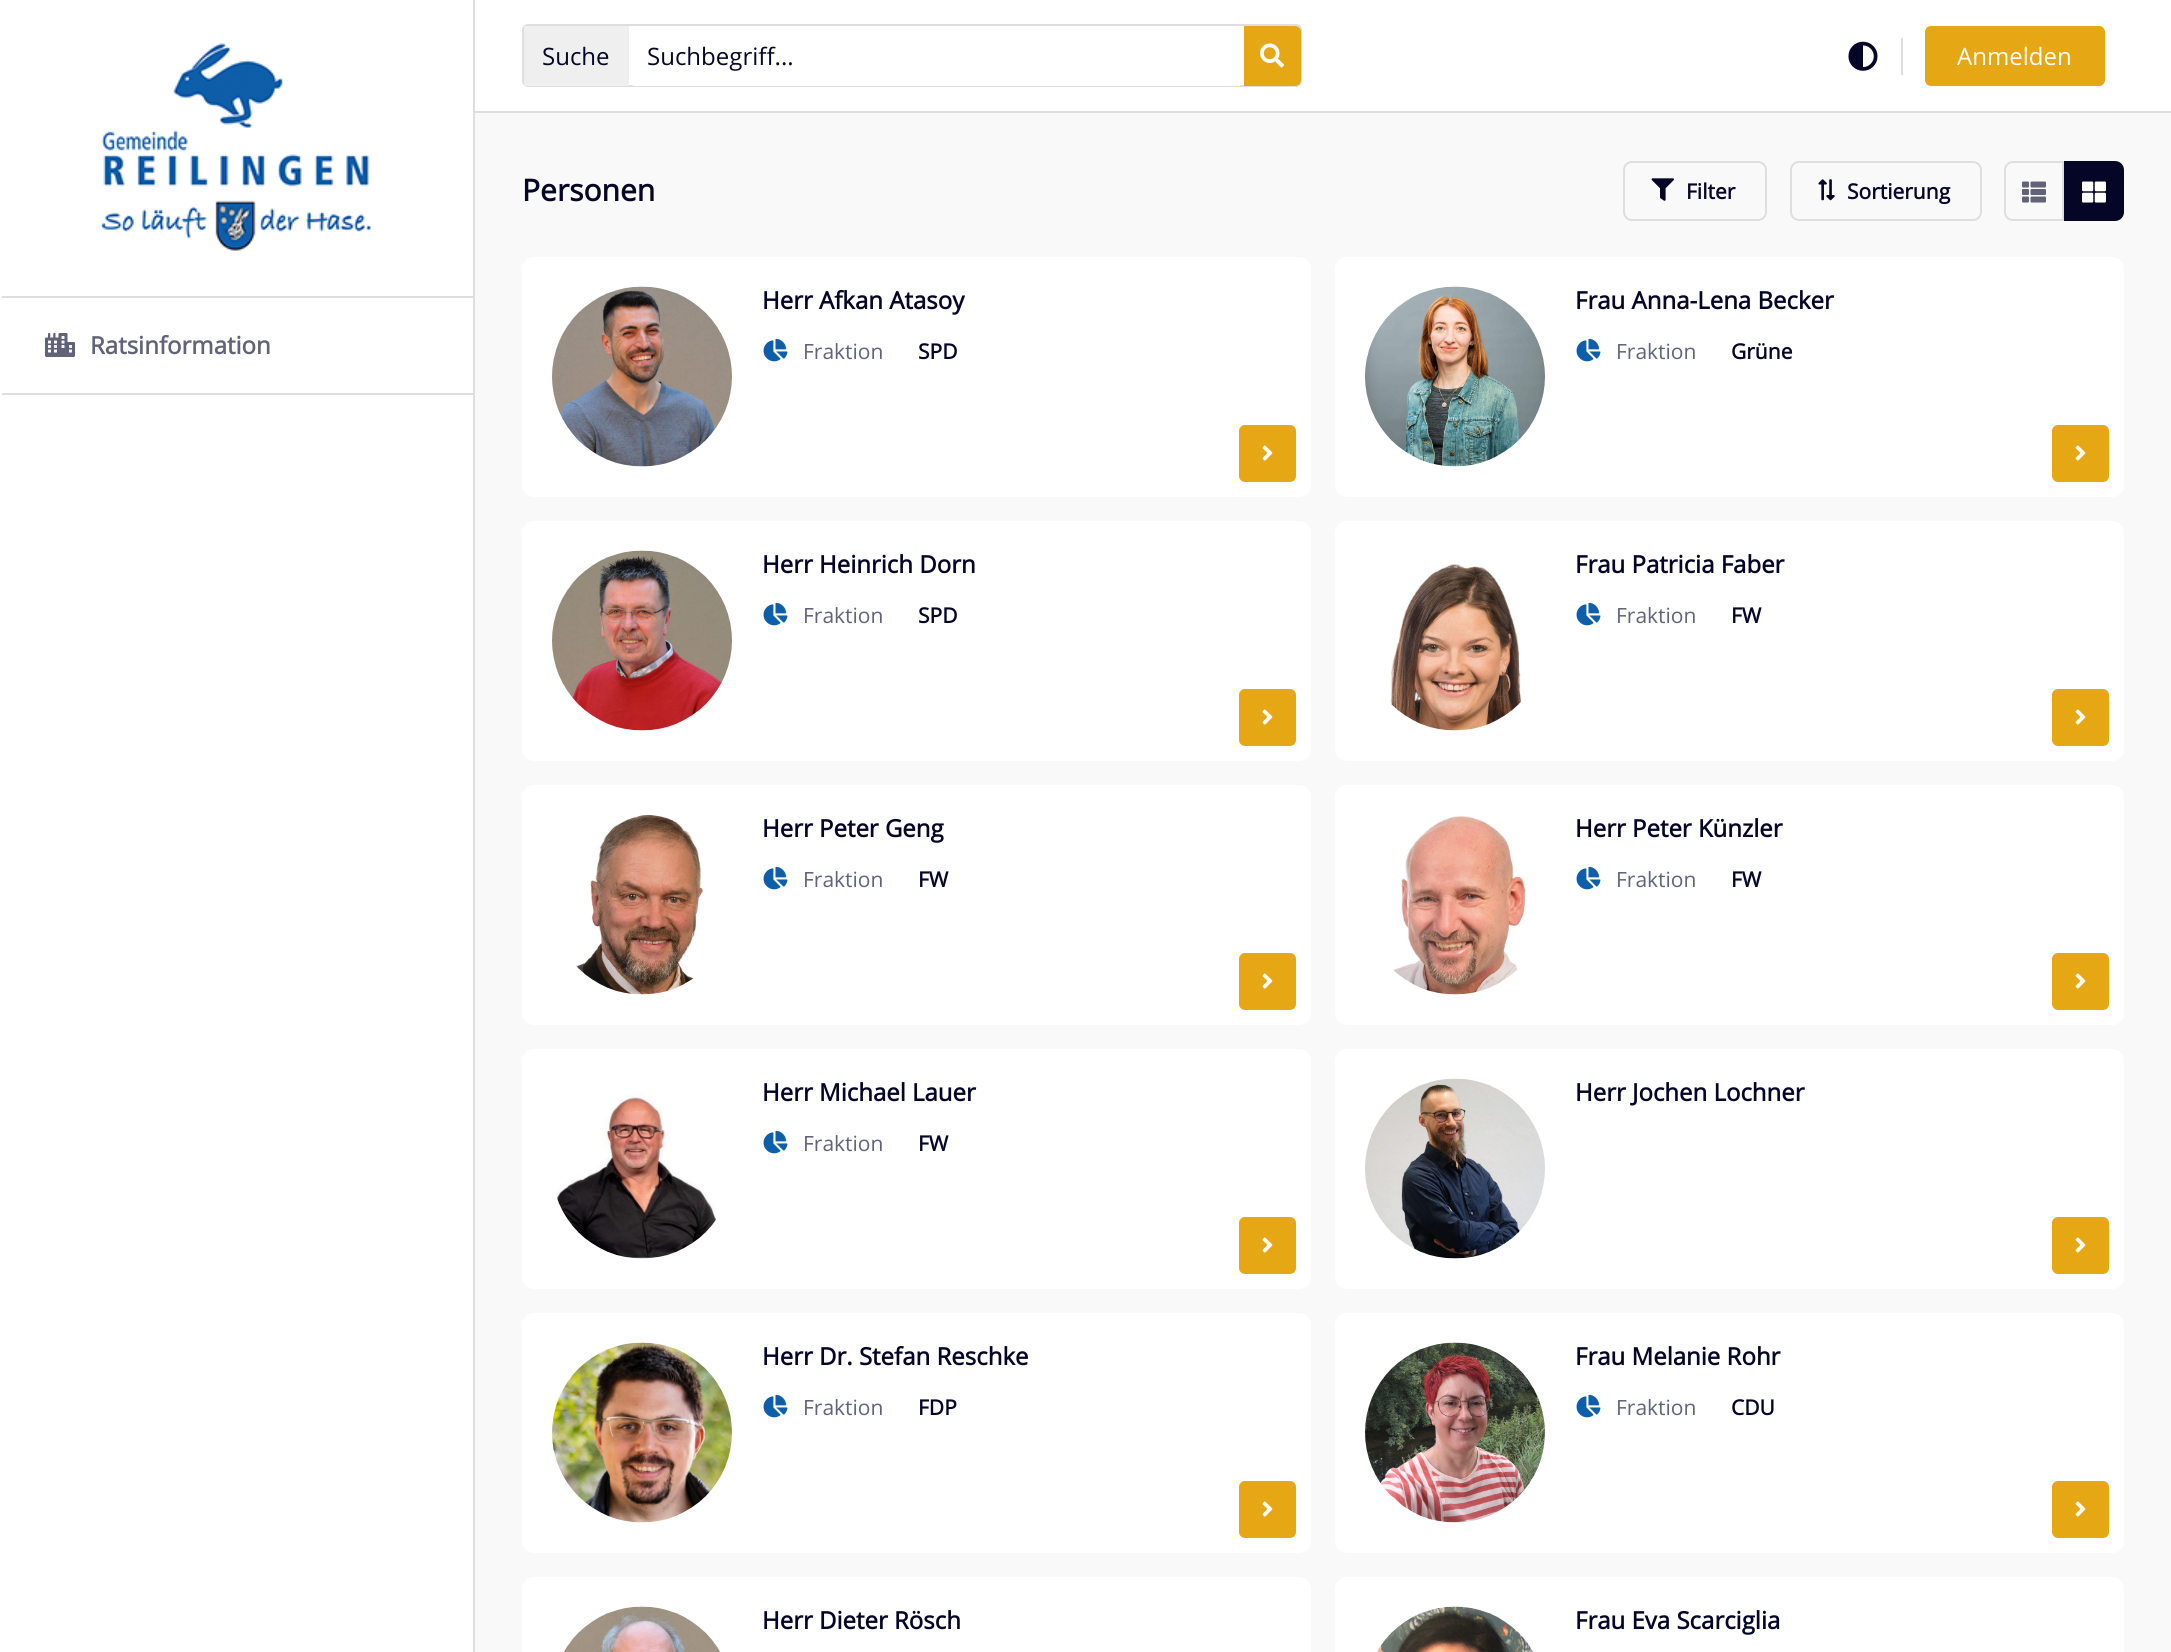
import math
import cairo

surface = cairo.ImageSurface(cairo.Format.RGB24, 2171, 1652)
ctx = cairo.Context(surface)
options = cairo.FontOptions()
options.set_hint_metrics(cairo.HintMetrics.OFF)
options.set_hint_style(cairo.HintStyle.NONE)
ctx.set_font_options(options)
ctx.set_miter_limit(4)


def ink(r, g, b):
    ctx.set_source_rgb(r / 255, g / 255, b / 255)


def write(x, y, s, family, size, color, bold=False, italic=False):
    ctx.select_font_face(family, cairo.FontSlant.ITALIC if italic else cairo.FontSlant.NORMAL, cairo.FontWeight.BOLD if bold else cairo.FontWeight.NORMAL)
    ctx.set_font_size(size)
    ink(*color)
    ctx.move_to(x, y)
    ctx.show_text(s)


def block(x, y, w, h, *color):
    ink(*color)
    ctx.rectangle(x, y, w, h)
    ctx.fill()


def round_path(x, y, w, h, r):
    ctx.new_sub_path()
    for i, (u, v) in enumerate([(x + w - r, y + h - r), (x + r, y + h - r), (x + r, y + r), (x + w - r, y + r)]):
        ctx.arc(u, v, r, i * math.pi / 2, (i + 1) * math.pi / 2)
    ctx.close_path()


def paste(path, x, y, w, h):
    ctx.save()
    ctx.set_source_surface(cairo.ImageSurface.create_from_png(path), x, y)
    ctx.rectangle(x, y, w, h)
    ctx.fill()
    ctx.restore()


s1 = dict(family="Open Sans", size=24, color=(97, 99, 121), bold=True)
s2 = dict(family="Open Sans", size=24, color=(5, 6, 39))
s3 = dict(family="Open Sans", size=24, color=(255, 255, 255))
s4 = dict(family="Open Sans", size=30, color=(5, 6, 39), bold=True)
s5 = dict(family="Open Sans", size=21, color=(5, 6, 39), bold=True)
s6 = dict(family="Open Sans", size=24, color=(5, 6, 39), bold=True)
s7 = dict(family="Open Sans", size=21, color=(97, 99, 121))

ink(255, 255, 255)
ctx.paint()
paste("pic1.png", 101, 43, 270, 208)
block(2, 296, 471, 2, 222, 222, 222)
block(2, 393, 471, 2, 222, 222, 222)
paste("pic2.png", 45, 333, 30, 24)
write(90, 354, "Ratsinformation", **s1)
block(473, 111, 1698, 2, 222, 222, 222)
block(473, 0, 2, 1652, 222, 222, 222)
round_path(523, 25, 778, 61, 5)
ctx.stroke()
block(524, 26, 105, 60, 239, 239, 239)
write(542, 65, "Suche", **s2)
ink(255, 255, 255)
round_path(629, 26, 615, 60, 6)
ctx.fill()
write(647, 65, "Suchbegriff...", **s2)
ink(229, 167, 19)
ctx.new_path()
ctx.move_to(1244, 26)
ctx.line_to(1295, 26)
ctx.curve_to(1298.5, 26, 1301, 28.5, 1301, 32)
ctx.line_to(1301, 80)
ctx.curve_to(1301, 83.5, 1298.5, 86, 1295, 86)
ctx.line_to(1244, 86)
ctx.close_path()
ctx.fill()
paste("pic3.png", 1260, 43, 24, 25)
block(1901, 38, 2, 37, 222, 222, 222)
paste("pic4.png", 1848, 41, 30, 30)
ink(229, 167, 19)
round_path(1926.5, 27.5, 177, 57, 4.5)
ctx.fill_preserve()
ctx.set_line_width(3)
ctx.stroke()
write(1957, 65, "Anmelden", **s3)
block(475, 113, 1696, 1539, 249, 249, 249)
write(522, 201, "Personen", **s4)
round_path(1624, 162, 142, 58, 8)
ink(222, 222, 222)
ctx.set_line_width(2)
ctx.stroke()
paste("pic5.png", 1651, 178, 23, 23)
write(1686, 199, "Filter", **s5)
round_path(1791, 162, 190, 58, 8)
ink(222, 222, 222)
ctx.stroke()
paste("pic6.png", 1818, 179, 17, 22)
write(1847, 199, "Sortierung", **s5)
ctx.new_path()
ctx.move_to(2013, 162)
ctx.line_to(2063, 162)
ctx.line_to(2063, 220)
ctx.line_to(2013, 220)
ctx.curve_to(2008.5, 220, 2005, 216.5, 2005, 212)
ctx.line_to(2005, 170)
ctx.curve_to(2005, 165.5, 2008.5, 162, 2013, 162)
ctx.close_path()
ink(222, 222, 222)
ctx.stroke()
paste("pic7.png", 2022, 181, 24, 22)
ink(5, 6, 39)
ctx.new_path()
ctx.move_to(2065, 162)
ctx.line_to(2115, 162)
ctx.curve_to(2119.5, 162, 2123, 165.5, 2123, 170)
ctx.line_to(2123, 212)
ctx.curve_to(2123, 216.5, 2119.5, 220, 2115, 220)
ctx.line_to(2065, 220)
ctx.close_path()
ctx.fill_preserve()
ctx.stroke()
paste("pic8.png", 2082, 181, 24, 22)
ink(255, 255, 255)
round_path(522, 257, 789, 240, 12)
ctx.fill()
paste("pic9.png", 552, 286, 180, 181)
write(762, 309, "Herr Afkan Atasoy", **s6)
paste("pic10.png", 763, 338, 25, 24)
write(803, 359, "Fraktion", **s7)
write(918, 359, "SPD", **s5)
ink(229, 167, 19)
round_path(1240.5, 426.5, 54, 54, 4.5)
ctx.fill_preserve()
ctx.set_line_width(3)
ctx.stroke()
paste("pic11.png", 1262, 445, 11, 16)
ink(255, 255, 255)
round_path(1335, 257, 789, 240, 12)
ctx.fill()
paste("pic12.png", 1365, 286, 180, 181)
write(1575, 309, "Frau Anna-Lena Becker", **s6)
paste("pic10.png", 1576, 338, 25, 24)
write(1616, 359, "Fraktion", **s7)
write(1731, 359, "Grüne", **s5)
ink(229, 167, 19)
round_path(2053.5, 426.5, 54, 54, 4.5)
ctx.fill_preserve()
ctx.stroke()
paste("pic11.png", 2075, 445, 11, 16)
ink(255, 255, 255)
round_path(522, 521, 789, 240, 12)
ctx.fill()
paste("pic13.png", 552, 550, 180, 181)
write(762, 573, "Herr Heinrich Dorn", **s6)
paste("pic10.png", 763, 602, 25, 24)
write(803, 623, "Fraktion", **s7)
write(918, 623, "SPD", **s5)
ink(229, 167, 19)
round_path(1240.5, 690.5, 54, 54, 4.5)
ctx.fill_preserve()
ctx.stroke()
paste("pic11.png", 1262, 709, 11, 16)
ink(255, 255, 255)
round_path(1335, 521, 789, 240, 12)
ctx.fill()
paste("pic14.png", 1390, 564, 132, 167)
write(1575, 573, "Frau Patricia Faber", **s6)
paste("pic10.png", 1576, 602, 25, 24)
write(1616, 623, "Fraktion", **s7)
write(1731, 623, "FW", **s5)
ink(229, 167, 19)
round_path(2053.5, 690.5, 54, 54, 4.5)
ctx.fill_preserve()
ctx.stroke()
paste("pic11.png", 2075, 709, 11, 16)
ink(255, 255, 255)
round_path(522, 785, 789, 240, 12)
ctx.fill()
paste("pic15.png", 576, 814, 128, 181)
write(762, 837, "Herr Peter Geng", **s6)
paste("pic10.png", 763, 866, 25, 24)
write(803, 887, "Fraktion", **s7)
write(918, 887, "FW", **s5)
ink(229, 167, 19)
round_path(1240.5, 954.5, 54, 54, 4.5)
ctx.fill_preserve()
ctx.stroke()
paste("pic11.png", 1262, 973, 11, 16)
ink(255, 255, 255)
round_path(1335, 785, 789, 240, 12)
ctx.fill()
paste("pic16.png", 1393, 815, 133, 180)
write(1575, 837, "Herr Peter Künzler", **s6)
paste("pic10.png", 1576, 866, 25, 24)
write(1616, 887, "Fraktion", **s7)
write(1731, 887, "FW", **s5)
ink(229, 167, 19)
round_path(2053.5, 954.5, 54, 54, 4.5)
ctx.fill_preserve()
ctx.stroke()
paste("pic11.png", 2075, 973, 11, 16)
ink(255, 255, 255)
round_path(522, 1049, 789, 240, 12)
ctx.fill()
paste("pic17.png", 556, 1093, 161, 166)
write(762, 1101, "Herr Michael Lauer", **s6)
paste("pic10.png", 763, 1130, 25, 24)
write(803, 1151, "Fraktion", **s7)
write(918, 1151, "FW", **s5)
ink(229, 167, 19)
round_path(1240.5, 1218.5, 54, 54, 4.5)
ctx.fill_preserve()
ctx.stroke()
paste("pic11.png", 1262, 1237, 11, 16)
ink(255, 255, 255)
round_path(1335, 1049, 789, 240, 12)
ctx.fill()
paste("pic18.png", 1365, 1078, 180, 181)
write(1575, 1101, "Herr Jochen Lochner", **s6)
ink(229, 167, 19)
round_path(2053.5, 1218.5, 54, 54, 4.5)
ctx.fill_preserve()
ctx.stroke()
paste("pic11.png", 2075, 1237, 11, 16)
ink(255, 255, 255)
round_path(522, 1313, 789, 240, 12)
ctx.fill()
paste("pic19.png", 552, 1342, 180, 181)
write(762, 1365, "Herr Dr. Stefan Reschke", **s6)
paste("pic10.png", 763, 1394, 25, 24)
write(803, 1415, "Fraktion", **s7)
write(918, 1415, "FDP", **s5)
ink(229, 167, 19)
round_path(1240.5, 1482.5, 54, 54, 4.5)
ctx.fill_preserve()
ctx.stroke()
paste("pic11.png", 1262, 1501, 11, 16)
ink(255, 255, 255)
round_path(1335, 1313, 789, 240, 12)
ctx.fill()
paste("pic20.png", 1365, 1342, 180, 181)
write(1575, 1365, "Frau Melanie Rohr", **s6)
paste("pic10.png", 1576, 1394, 25, 24)
write(1616, 1415, "Fraktion", **s7)
write(1731, 1415, "CDU", **s5)
ink(229, 167, 19)
round_path(2053.5, 1482.5, 54, 54, 4.5)
ctx.fill_preserve()
ctx.stroke()
paste("pic11.png", 2075, 1501, 11, 16)
ink(255, 255, 255)
ctx.new_path()
ctx.move_to(534, 1577)
ctx.line_to(1299, 1577)
ctx.curve_to(1305.5, 1577, 1311, 1582.5, 1311, 1589)
ctx.line_to(1311, 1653)
ctx.line_to(522, 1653)
ctx.line_to(522, 1589)
ctx.curve_to(522, 1582.5, 527.5, 1577, 534, 1577)
ctx.close_path()
ctx.fill()
paste("pic21.png", 563, 1606, 157, 46)
write(762, 1629, "Herr Dieter Rösch", **s6)
ink(255, 255, 255)
ctx.new_path()
ctx.move_to(1347, 1577)
ctx.line_to(2112, 1577)
ctx.curve_to(2118.5, 1577, 2124, 1582.5, 2124, 1589)
ctx.line_to(2124, 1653)
ctx.line_to(1335, 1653)
ctx.line_to(1335, 1589)
ctx.curve_to(1335, 1582.5, 1340.5, 1577, 1347, 1577)
ctx.close_path()
ctx.fill()
paste("pic22.png", 1376, 1606, 158, 46)
write(1575, 1629, "Frau Eva Scarciglia", **s6)
surface.write_to_png("screenshot.png")
